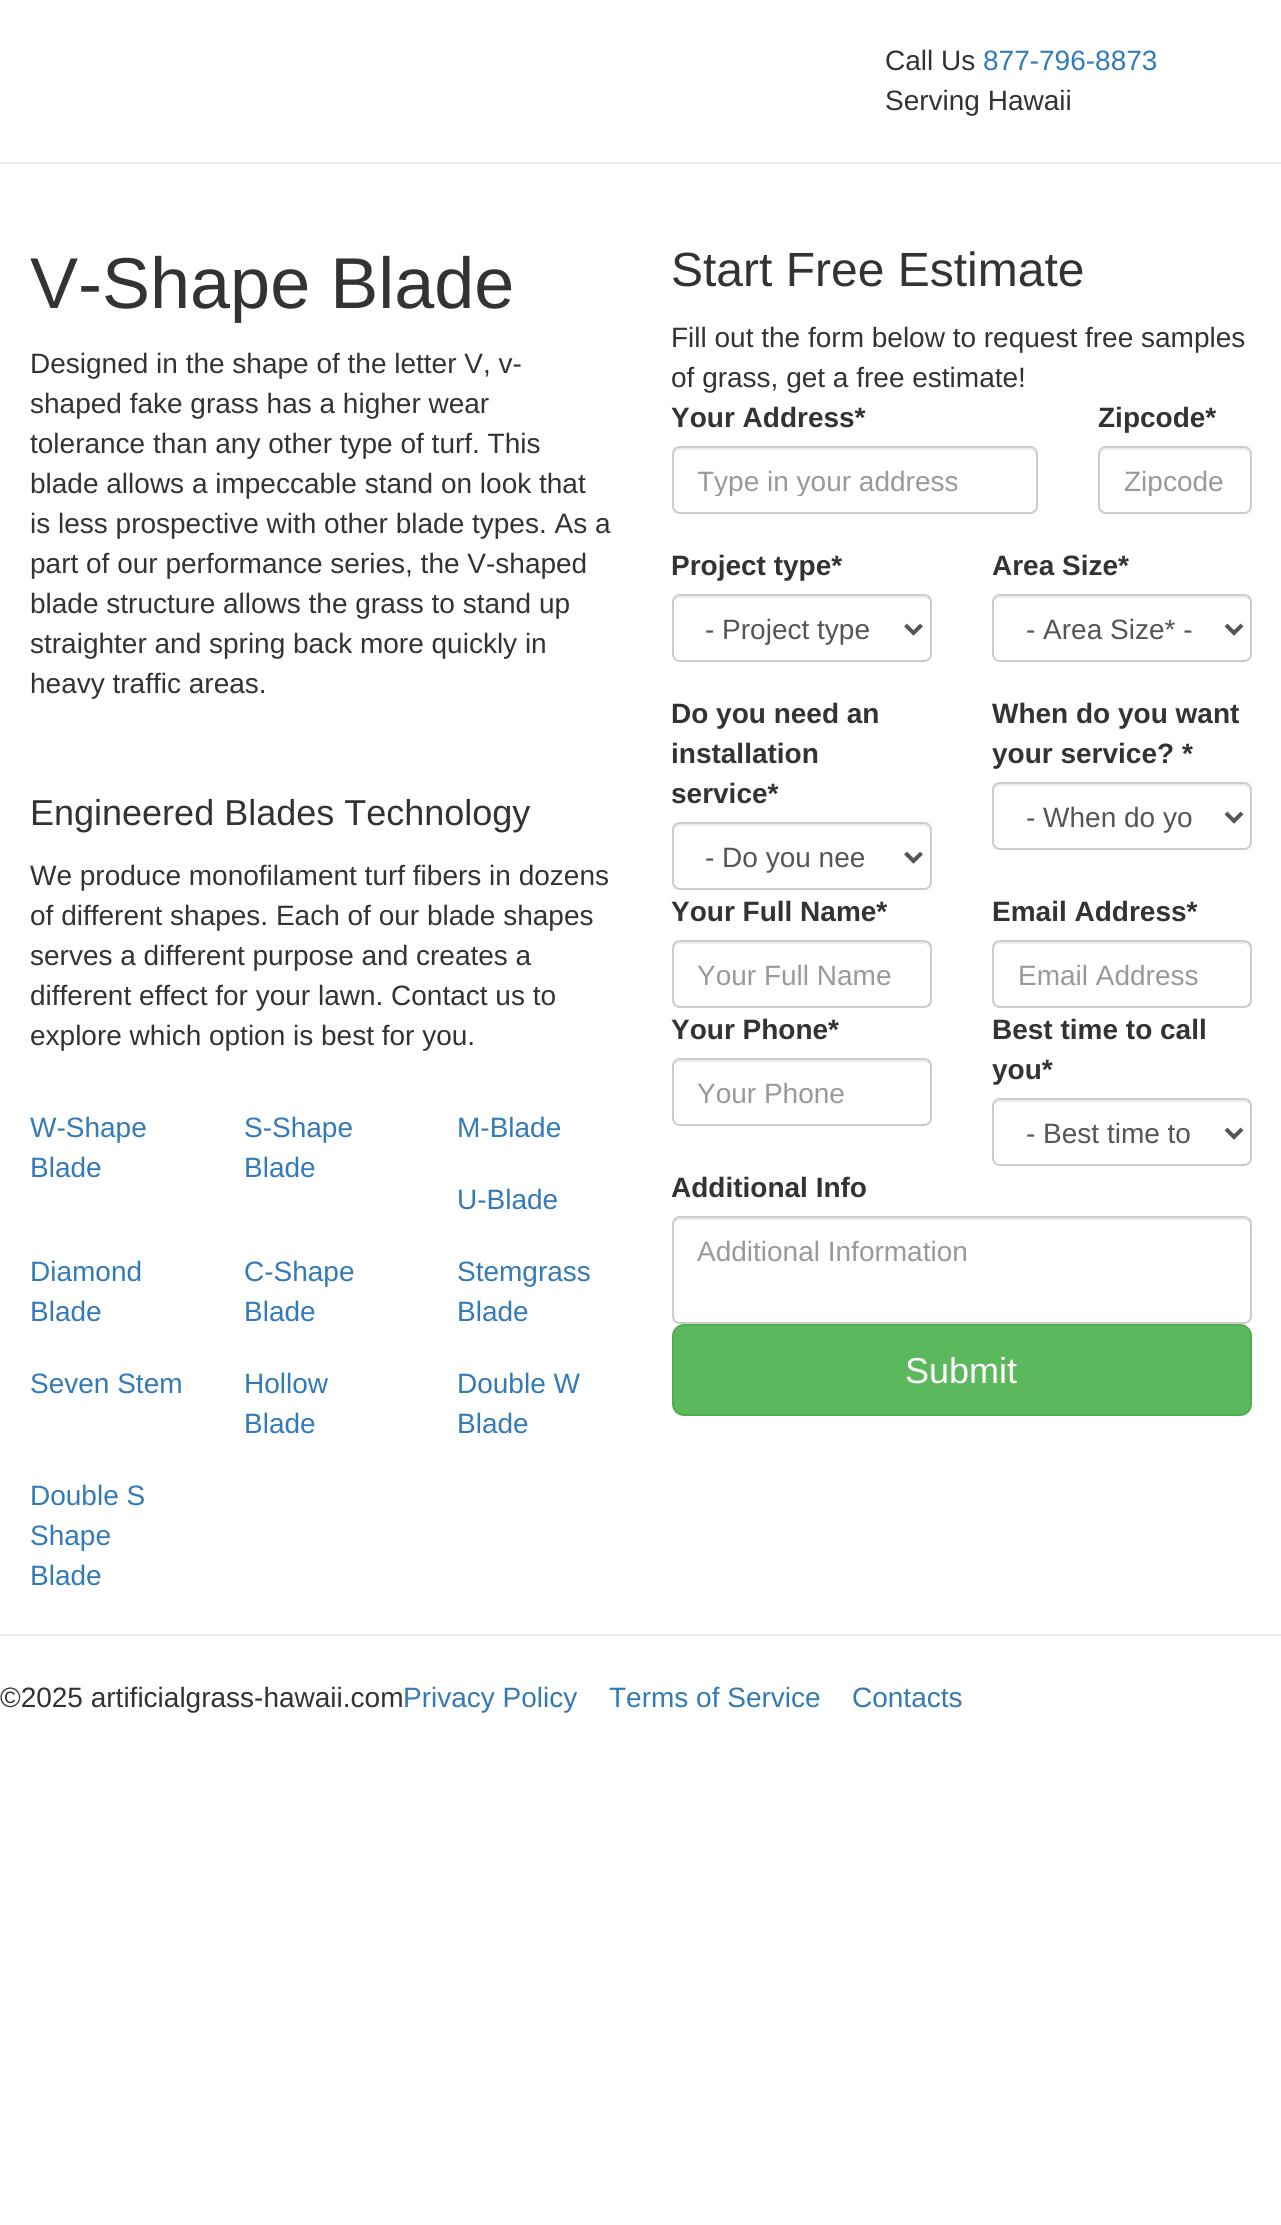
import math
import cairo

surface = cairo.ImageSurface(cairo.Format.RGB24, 1281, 2225)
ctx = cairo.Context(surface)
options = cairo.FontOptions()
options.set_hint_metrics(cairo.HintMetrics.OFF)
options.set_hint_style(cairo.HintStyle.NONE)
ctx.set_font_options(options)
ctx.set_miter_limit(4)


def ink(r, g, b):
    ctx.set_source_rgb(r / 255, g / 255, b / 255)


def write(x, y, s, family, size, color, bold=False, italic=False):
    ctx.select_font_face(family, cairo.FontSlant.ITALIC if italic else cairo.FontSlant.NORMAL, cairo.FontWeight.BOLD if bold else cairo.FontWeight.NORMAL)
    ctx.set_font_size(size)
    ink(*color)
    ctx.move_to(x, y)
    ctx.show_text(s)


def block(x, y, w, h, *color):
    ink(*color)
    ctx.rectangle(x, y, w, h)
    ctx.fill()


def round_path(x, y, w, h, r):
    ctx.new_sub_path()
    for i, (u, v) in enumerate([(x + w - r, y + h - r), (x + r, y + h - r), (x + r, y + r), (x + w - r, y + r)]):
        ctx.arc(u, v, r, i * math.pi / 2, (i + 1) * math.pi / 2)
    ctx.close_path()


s1 = dict(family="Liberation Sans", size=28, color=(51, 51, 51))
s2 = dict(family="Liberation Sans", size=28, color=(51, 122, 183))
s3 = dict(family="Liberation Sans", size=72, color=(51, 51, 51))
s4 = dict(family="Liberation Sans", size=36, color=(51, 51, 51))
s5 = dict(family="Liberation Sans", size=48, color=(51, 51, 51))
s6 = dict(family="Liberation Sans", size=28, color=(51, 51, 51), bold=True)
s7 = dict(family="Liberation Sans", size=28, color=(153, 153, 153))
s8 = dict(family="Liberation Sans", size=28, color=(85, 85, 85))
s9 = dict(family="Liberation Sans", size=36, color=(255, 255, 255))

ink(255, 255, 255)
ctx.paint()
write(885, 70, "Call Us", **s1)
write(983, 70, "877-796-8873", **s2)
write(885, 110, "Serving Hawaii", **s1)
block(0, 162, 1281, 2, 238, 238, 238)
write(30, 308, "V-Shape Blade", **s3)
write(30, 373, "Designed in the shape of the letter V, v-", **s1)
write(30, 413, "shaped fake grass has a higher wear", **s1)
write(30, 453, "tolerance than any other type of turf. This", **s1)
write(30, 493, "blade allows a impeccable stand on look that", **s1)
write(30, 533, "is less prospective with other blade types. As a", **s1)
write(30, 573, "part of our performance series, the V-shaped", **s1)
write(30, 613, "blade structure allows the grass to stand up", **s1)
write(30, 653, "straighter and spring back more quickly in", **s1)
write(30, 693, "heavy traffic areas.", **s1)
write(30, 825, "Engineered Blades Technology", **s4)
write(30, 885, "We produce monofilament turf fibers in dozens", **s1)
write(30, 925, "of different shapes. Each of our blade shapes", **s1)
write(30, 965, "serves a different purpose and creates a", **s1)
write(30, 1005, "different effect for your lawn. Contact us to", **s1)
write(30, 1045, "explore which option is best for you.", **s1)
write(30, 1137, "W-Shape", **s2)
write(30, 1177, "Blade", **s2)
write(244, 1137, "S-Shape", **s2)
write(244, 1177, "Blade", **s2)
write(457, 1137, "M-Blade", **s2)
write(457, 1209, "U-Blade", **s2)
write(30, 1281, "Diamond", **s2)
write(30, 1321, "Blade", **s2)
write(244, 1281, "C-Shape", **s2)
write(244, 1321, "Blade", **s2)
write(457, 1281, "Stemgrass", **s2)
write(457, 1321, "Blade", **s2)
write(30, 1393, "Seven Stem", **s2)
write(244, 1393, "Hollow", **s2)
write(244, 1433, "Blade", **s2)
write(457, 1393, "Double W", **s2)
write(457, 1433, "Blade", **s2)
write(30, 1505, "Double S", **s2)
write(30, 1545, "Shape", **s2)
write(30, 1585, "Blade", **s2)
write(671, 286, "Start Free Estimate", **s5)
write(671, 347, "Fill out the form below to request free samples", **s1)
write(671, 387, "of grass, get a free estimate!", **s1)
write(671, 427, "Your Address*", **s6)
ink(236, 236, 236)
ctx.new_path()
ctx.move_to(680, 450)
ctx.line_to(1030, 450)
ctx.curve_to(1033, 450, 1036, 453, 1036, 456)
ctx.line_to(1036, 454)
ctx.curve_to(1036, 451, 1033, 448, 1030, 448)
ctx.line_to(680, 448)
ctx.curve_to(677, 448, 674, 451, 674, 454)
ctx.line_to(674, 456)
ctx.curve_to(674, 453, 677, 450, 680, 450)
ctx.close_path()
ctx.fill()
round_path(673, 447, 364, 66, 7)
ink(204, 204, 204)
ctx.stroke()
ctx.save()
ctx.rectangle(698, 464, 314, 32)
ctx.clip()
write(697, 491, "Type in your address", **s7)
ctx.restore()
write(1098, 427, "Zipcode*", **s6)
ink(236, 236, 236)
ctx.new_path()
ctx.move_to(1106, 450)
ctx.line_to(1244, 450)
ctx.curve_to(1247, 450, 1250, 453, 1250, 456)
ctx.line_to(1250, 454)
ctx.curve_to(1250, 451, 1247, 448, 1244, 448)
ctx.line_to(1106, 448)
ctx.curve_to(1103, 448, 1100, 451, 1100, 454)
ctx.line_to(1100, 456)
ctx.curve_to(1100, 453, 1103, 450, 1106, 450)
ctx.close_path()
ctx.fill()
round_path(1099, 447, 152, 66, 7)
ink(204, 204, 204)
ctx.stroke()
ctx.save()
ctx.rectangle(1124, 464, 102, 32)
ctx.clip()
write(1124, 491, "Zipcode", **s7)
ctx.restore()
write(671, 575, "Project type*", **s6)
ink(236, 236, 236)
ctx.new_path()
ctx.move_to(680, 598)
ctx.line_to(924, 598)
ctx.curve_to(927, 598, 930, 601, 930, 604)
ctx.curve_to(930, 601, 929, 597, 925, 596)
ctx.line_to(680, 596)
ctx.curve_to(675, 596, 674, 600, 674, 604)
ctx.curve_to(674, 601, 677, 598, 680, 598)
ctx.close_path()
ctx.fill()
round_path(673, 595, 258, 66, 7)
ink(204, 204, 204)
ctx.stroke()
ctx.new_path()
ctx.move_to(905.5, 625)
ctx.line_to(913.5, 633)
ctx.line_to(921.5, 625)
ink(85, 85, 85)
ctx.set_line_width(4)
ctx.stroke()
write(705, 639, "- Project type", **s8)
write(992, 575, "Area Size*", **s6)
ink(236, 236, 236)
ctx.new_path()
ctx.move_to(1000, 598)
ctx.line_to(1244, 598)
ctx.curve_to(1247, 598, 1250, 601, 1250, 604)
ctx.curve_to(1250, 601, 1249, 597, 1245, 596)
ctx.line_to(1000, 596)
ctx.curve_to(995, 596, 994, 600, 994, 604)
ctx.curve_to(994, 601, 997, 598, 1000, 598)
ctx.close_path()
ctx.fill()
round_path(993, 595, 258, 66, 7)
ink(204, 204, 204)
ctx.set_line_width(2)
ctx.stroke()
ctx.new_path()
ctx.move_to(1226, 625)
ctx.line_to(1234, 633)
ctx.line_to(1242, 625)
ink(85, 85, 85)
ctx.set_line_width(4)
ctx.stroke()
write(1026, 639, "- Area Size* -", **s8)
write(671, 723, "Do you need an", **s6)
write(671, 763, "installation", **s6)
write(671, 803, "service*", **s6)
ink(236, 236, 236)
ctx.new_path()
ctx.move_to(680, 826)
ctx.line_to(924, 826)
ctx.curve_to(927, 826, 930, 829, 930, 832)
ctx.curve_to(930, 829, 929, 825, 925, 824)
ctx.line_to(680, 824)
ctx.curve_to(675, 824, 674, 828, 674, 832)
ctx.curve_to(674, 829, 677, 826, 680, 826)
ctx.close_path()
ctx.fill()
round_path(673, 823, 258, 66, 7)
ink(204, 204, 204)
ctx.set_line_width(2)
ctx.stroke()
ctx.new_path()
ctx.move_to(905.5, 853)
ctx.line_to(913.5, 861)
ctx.line_to(921.5, 853)
ink(85, 85, 85)
ctx.set_line_width(4)
ctx.stroke()
write(705, 867, "- Do you nee", **s8)
write(992, 723, "When do you want", **s6)
write(992, 763, "your service? *", **s6)
ink(236, 236, 236)
ctx.new_path()
ctx.move_to(1000, 786)
ctx.line_to(1244, 786)
ctx.curve_to(1247, 786, 1250, 789, 1250, 792)
ctx.curve_to(1250, 789, 1249, 785, 1245, 784)
ctx.line_to(1000, 784)
ctx.curve_to(995, 784, 994, 788, 994, 792)
ctx.curve_to(994, 789, 997, 786, 1000, 786)
ctx.close_path()
ctx.fill()
round_path(993, 783, 258, 66, 7)
ink(204, 204, 204)
ctx.set_line_width(2)
ctx.stroke()
ctx.new_path()
ctx.move_to(1226, 813)
ctx.line_to(1234, 821)
ctx.line_to(1242, 813)
ink(85, 85, 85)
ctx.set_line_width(4)
ctx.stroke()
write(1026, 827, "- When do yo", **s8)
write(671, 921, "Your Full Name*", **s6)
ink(236, 236, 236)
ctx.new_path()
ctx.move_to(680, 944)
ctx.line_to(924, 944)
ctx.curve_to(927, 944, 930, 947, 930, 950)
ctx.curve_to(930, 947, 929, 943, 925, 942)
ctx.line_to(680, 942)
ctx.curve_to(675, 942, 674, 946, 674, 950)
ctx.curve_to(674, 947, 677, 944, 680, 944)
ctx.close_path()
ctx.fill()
round_path(673, 941, 258, 66, 7)
ink(204, 204, 204)
ctx.set_line_width(2)
ctx.stroke()
write(697, 985, "Your Full Name", **s7)
write(992, 921, "Email Address*", **s6)
ink(236, 236, 236)
ctx.new_path()
ctx.move_to(1000, 944)
ctx.line_to(1244, 944)
ctx.curve_to(1247, 944, 1250, 947, 1250, 950)
ctx.curve_to(1250, 947, 1249, 943, 1245, 942)
ctx.line_to(1000, 942)
ctx.curve_to(995, 942, 994, 946, 994, 950)
ctx.curve_to(994, 947, 997, 944, 1000, 944)
ctx.close_path()
ctx.fill()
round_path(993, 941, 258, 66, 7)
ink(204, 204, 204)
ctx.stroke()
write(1018, 985, "Email Address", **s7)
write(671, 1039, "Your Phone*", **s6)
ink(236, 236, 236)
ctx.new_path()
ctx.move_to(680, 1062)
ctx.line_to(924, 1062)
ctx.curve_to(927, 1062, 930, 1065, 930, 1068)
ctx.curve_to(930, 1065, 929, 1061, 925, 1060)
ctx.line_to(680, 1060)
ctx.curve_to(675, 1060, 674, 1064, 674, 1068)
ctx.curve_to(674, 1065, 677, 1062, 680, 1062)
ctx.close_path()
ctx.fill()
round_path(673, 1059, 258, 66, 7)
ink(204, 204, 204)
ctx.stroke()
write(697, 1103, "Your Phone", **s7)
write(992, 1039, "Best time to call", **s6)
write(992, 1079, "you*", **s6)
ink(236, 236, 236)
ctx.new_path()
ctx.move_to(1000, 1102)
ctx.line_to(1244, 1102)
ctx.curve_to(1247, 1102, 1250, 1105, 1250, 1108)
ctx.curve_to(1250, 1105, 1249, 1101, 1245, 1100)
ctx.line_to(1000, 1100)
ctx.curve_to(995, 1100, 994, 1104, 994, 1108)
ctx.curve_to(994, 1105, 997, 1102, 1000, 1102)
ctx.close_path()
ctx.fill()
round_path(993, 1099, 258, 66, 7)
ink(204, 204, 204)
ctx.stroke()
ctx.new_path()
ctx.move_to(1226, 1129)
ctx.line_to(1234, 1137)
ctx.line_to(1242, 1129)
ink(85, 85, 85)
ctx.set_line_width(4)
ctx.stroke()
write(1026, 1143, "- Best time to", **s8)
write(671, 1197, "Additional Info", **s6)
ink(236, 236, 236)
ctx.new_path()
ctx.move_to(680, 1220)
ctx.line_to(1244, 1220)
ctx.curve_to(1247, 1220, 1250, 1223, 1250, 1226)
ctx.curve_to(1250, 1222, 1249, 1218, 1244, 1218)
ctx.line_to(680, 1218)
ctx.curve_to(675, 1218, 674, 1222, 674, 1226)
ctx.curve_to(674, 1223, 677, 1220, 680, 1220)
ctx.close_path()
ctx.fill()
round_path(673, 1217, 578, 106, 7)
ink(204, 204, 204)
ctx.set_line_width(2)
ctx.stroke()
write(697, 1261, "Additional Information", **s7)
ink(92, 184, 92)
round_path(673, 1325, 578, 90, 11)
ctx.fill_preserve()
ink(76, 174, 76)
ctx.stroke()
write(905, 1383, "Submit", **s9)
block(0, 1634, 1281, 2, 238, 238, 238)
write(0, 1707, "©2025 artificialgrass-hawaii.com", **s1)
write(403, 1707, "Privacy Policy", **s2)
write(609, 1707, "Terms of Service", **s2)
write(852, 1707, "Contacts", **s2)
surface.write_to_png("screenshot.png")
